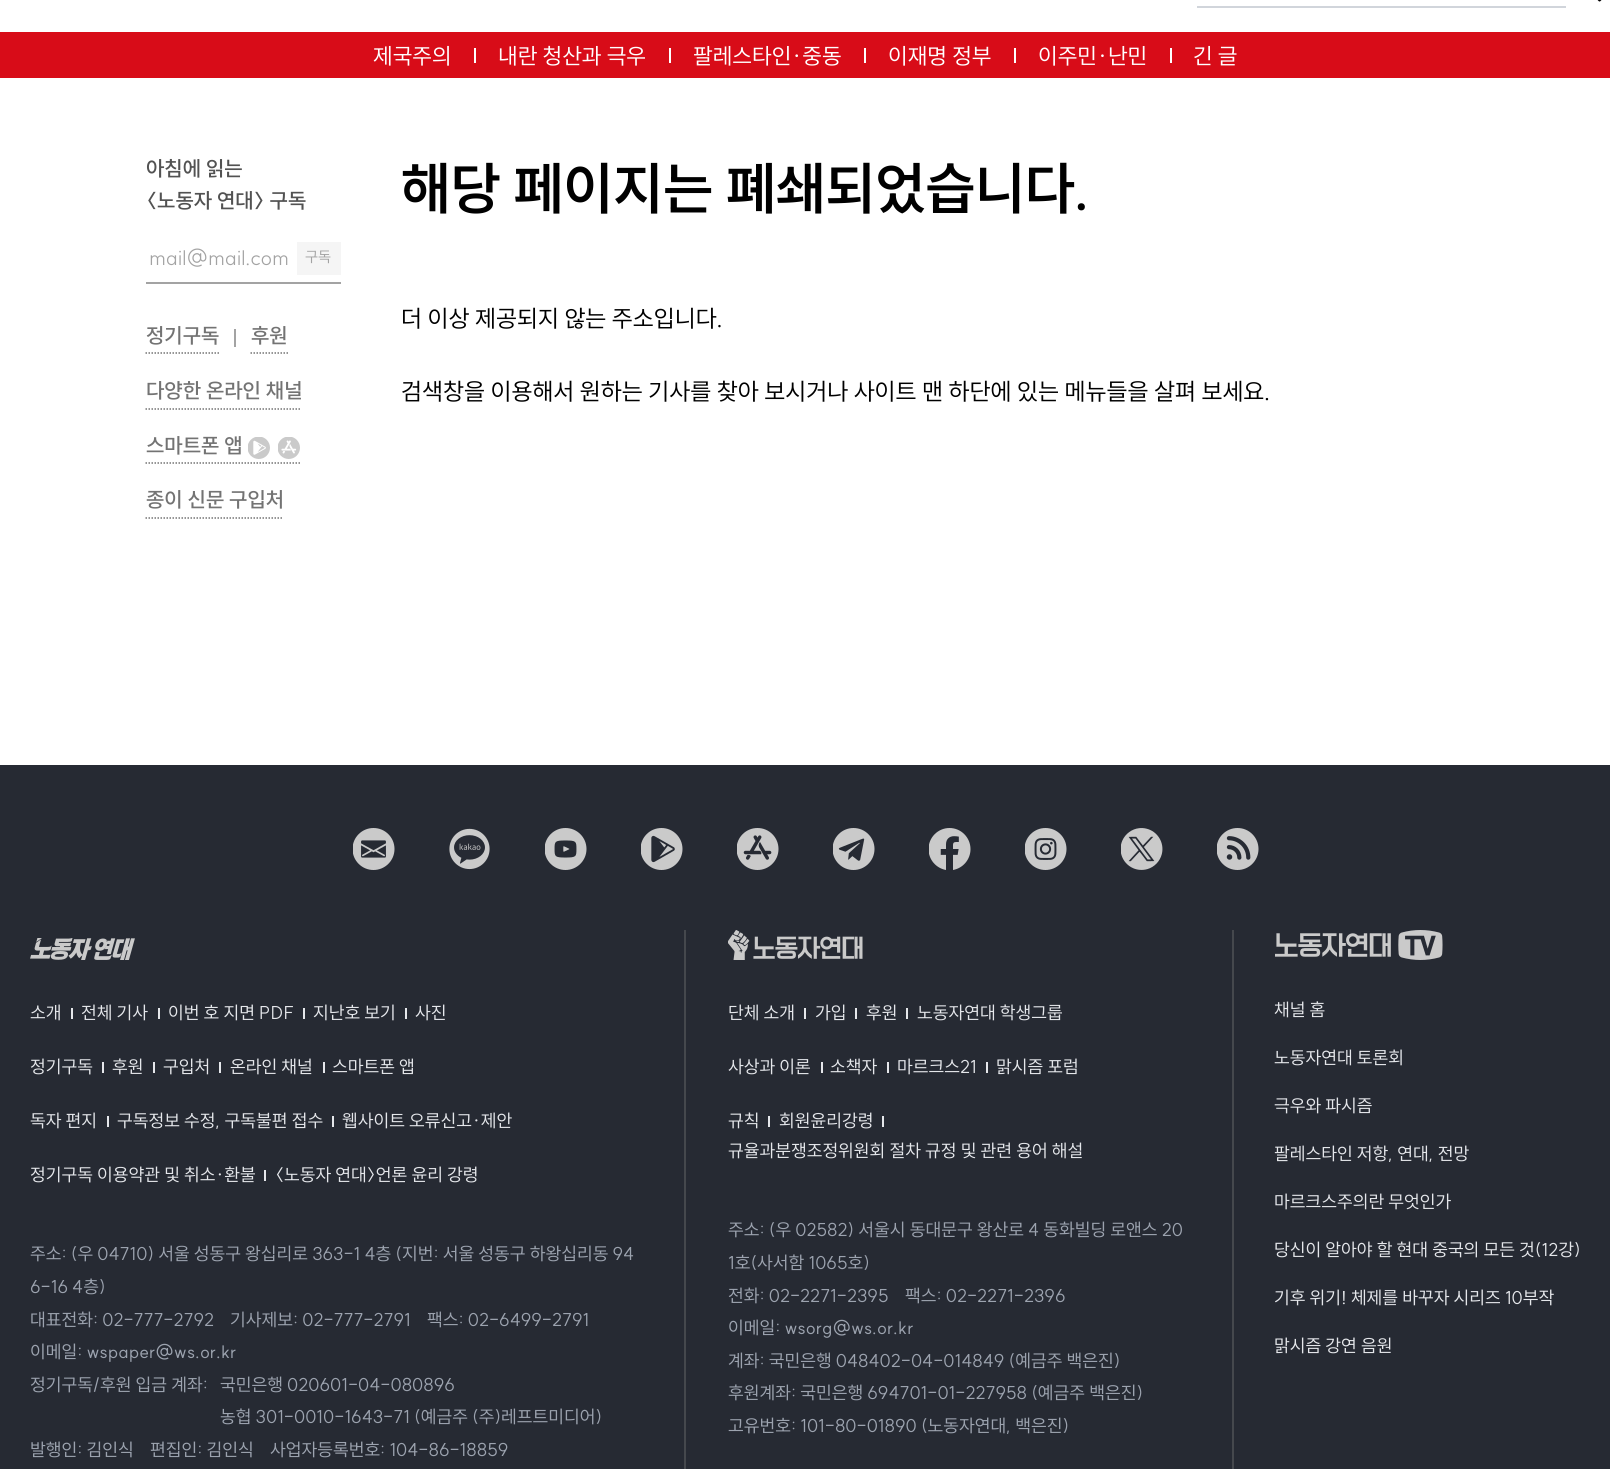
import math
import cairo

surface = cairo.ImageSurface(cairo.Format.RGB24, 1610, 1469)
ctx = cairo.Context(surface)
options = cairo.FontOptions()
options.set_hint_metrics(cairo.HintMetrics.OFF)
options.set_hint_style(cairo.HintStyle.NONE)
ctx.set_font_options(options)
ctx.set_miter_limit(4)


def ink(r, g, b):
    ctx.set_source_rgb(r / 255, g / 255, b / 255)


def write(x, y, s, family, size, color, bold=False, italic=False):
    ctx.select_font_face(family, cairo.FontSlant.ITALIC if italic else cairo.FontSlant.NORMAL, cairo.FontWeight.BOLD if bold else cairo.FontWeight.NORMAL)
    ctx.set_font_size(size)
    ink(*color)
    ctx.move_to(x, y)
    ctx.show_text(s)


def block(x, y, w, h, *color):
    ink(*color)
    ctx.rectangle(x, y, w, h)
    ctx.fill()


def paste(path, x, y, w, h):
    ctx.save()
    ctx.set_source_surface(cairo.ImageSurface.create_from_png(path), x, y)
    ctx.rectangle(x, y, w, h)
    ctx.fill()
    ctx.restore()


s1 = dict(family="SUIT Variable", size=22.5, color=(255, 255, 255))
s2 = dict(family="SUIT Variable SemiBold", size=21, color=(82, 82, 82))
s3 = dict(family="SUIT Variable Light", size=21, color=(163, 163, 163))
s4 = dict(family="SUIT Variable", size=15, color=(163, 163, 163))
s5 = dict(family="SUIT Variable SemiBold", size=21, color=(115, 115, 115))
s6 = dict(family="SUIT Variable", size=57, color=(0, 0, 0), bold=True)
s7 = dict(family="SUIT Variable", size=24, color=(0, 0, 0))
s8 = dict(family="SUIT Variable", size=18, color=(229, 231, 235))
s9 = dict(family="SUIT Variable", size=18, color=(156, 163, 175))

ink(255, 255, 255)
ctx.paint()
paste("pic1.png", 1597, 0, 5, 2)
block(1197, 6, 369, 2, 209, 213, 219)
block(0, 32, 1610, 46, 216, 12, 24)
write(373, 64, "제국주의", **s1)
block(474, 48, 2, 15, 255, 255, 255)
write(498, 64, "내란 청산과 극우", **s1)
block(669, 48, 2, 15, 255, 255, 255)
write(693, 64, "팔레스타인·중동", **s1)
block(864, 48, 2, 15, 255, 255, 255)
write(888, 64, "이재명 정부", **s1)
block(1014, 48, 2, 15, 255, 255, 255)
write(1038, 64, "이주민·난민", **s1)
block(1170, 48, 2, 15, 255, 255, 255)
write(1193, 64, "긴 글", **s1)
write(146, 176, "아침에 읽는", **s2)
write(146, 208, "〈노동자 연대〉 구독", **s2)
block(146, 282, 195, 2, 163, 163, 163)
write(149, 265, "mail@mail.com", **s3)
block(297, 242, 44, 33, 245, 245, 245)
write(305, 262, "구독", **s4)
ctx.new_path()
ctx.move_to(145.5, 353)
ctx.line_to(219, 353)
ink(115, 115, 115)
ctx.set_line_width(1.5)
ctx.set_dash([1.5, 1.5])
ctx.stroke()
write(146, 343, "정기구독", **s5)
block(234, 329, 2, 18, 163, 163, 163)
ctx.new_path()
ctx.move_to(250.5, 353)
ctx.line_to(288, 353)
ink(115, 115, 115)
ctx.stroke()
write(251, 343, "후원", **s5)
ctx.new_path()
ctx.move_to(145.5, 409)
ctx.line_to(301.5, 409)
ctx.stroke()
write(146, 398, "다양한 온라인 채널", **s5)
ctx.new_path()
ctx.move_to(145.5, 463)
ctx.line_to(300, 463)
ctx.stroke()
write(146, 453, "스마트폰 앱", **s5)
paste("pic2.png", 248, 437, 22, 22)
paste("pic3.png", 278, 437, 22, 22)
ctx.new_path()
ctx.move_to(145.5, 518)
ctx.line_to(283.5, 518)
ctx.stroke()
write(146, 507, "종이 신문 구입처", **s5)
write(401, 209, "해당 페이지는 폐쇄되었습니다.", **s6)
write(401, 327, "더 이상 제공되지 않는 주소입니다.", **s7)
write(401, 400, "검색창을 이용해서 원하는 기사를 찾아 보시거나 사이트 맨 하단에 있는 메뉴들을 살펴 보세요.", **s7)
block(0, 765, 1610, 704, 38, 42, 51)
paste("pic4.png", 353, 828, 42, 42)
paste("pic5.png", 449, 828, 41, 42)
paste("pic6.png", 545, 828, 42, 42)
paste("pic7.png", 641, 828, 42, 42)
paste("pic8.png", 737, 828, 42, 42)
paste("pic9.png", 833, 828, 42, 42)
paste("pic10.png", 929, 828, 42, 42)
paste("pic11.png", 1025, 828, 42, 42)
paste("pic12.png", 1121, 828, 42, 42)
paste("pic13.png", 1217, 828, 42, 42)
paste("pic14.png", 30, 938, 105, 22)
write(30, 1019, "소개", **s8)
block(71, 1008, 2, 11, 229, 231, 235)
write(81, 1019, "전체 기사", **s8)
block(158, 1008, 2, 11, 229, 231, 235)
write(168, 1019, "이번 호 지면 PDF", **s8)
block(303, 1008, 2, 11, 229, 231, 235)
write(313, 1019, "지난호 보기", **s8)
block(405, 1008, 2, 11, 229, 231, 235)
write(415, 1019, "사진", **s8)
write(30, 1073, "정기구독", **s8)
block(102, 1062, 2, 11, 229, 231, 235)
write(112, 1073, "후원", **s8)
block(153, 1062, 2, 11, 229, 231, 235)
write(163, 1073, "구입처", **s8)
block(219, 1062, 2, 11, 229, 231, 235)
write(230, 1073, "온라인 채널", **s8)
block(323, 1062, 2, 11, 229, 231, 235)
write(332, 1073, "스마트폰 앱", **s8)
write(30, 1127, "독자 편지", **s8)
block(107, 1116, 2, 11, 229, 231, 235)
write(117, 1127, "구독정보 수정, 구독불편 접수", **s8)
block(332, 1116, 2, 11, 229, 231, 235)
write(342, 1127, "웹사이트 오류신고·제안", **s8)
write(30, 1181, "정기구독 이용약관 및 취소·환불", **s8)
block(264, 1170, 2, 11, 229, 231, 235)
write(275, 1181, "〈노동자 연대〉언론 윤리 강령", **s8)
write(30, 1260, "주소: (우 04710) 서울 성동구 왕십리로 363-1 4층 (지번: 서울 성동구 하왕십리동 94", **s9)
write(30, 1293, "6-16 4층)", **s9)
write(30, 1326, "대표전화: 02-777-2792", **s9)
write(230, 1326, "기사제보: 02-777-2791", **s9)
write(427, 1326, "팩스: 02-6499-2791", **s9)
write(30, 1358, "이메일: wspaper@ws.or.kr", **s9)
write(30, 1391, "정기구독/후원 입금 계좌:", **s9)
write(220, 1391, "국민은행 020601-04-080896", **s9)
write(220, 1423, "농협 301-0010-1643-71 (예금주 (주)레프트미디어)", **s9)
write(30, 1456, "발행인: 김인식", **s9)
write(150, 1456, "편집인: 김인식", **s9)
write(270, 1456, "사업자등록번호: 104-86-18859", **s9)
block(684, 930, 2, 539, 69, 72, 77)
paste("pic15.png", 728, 930, 135, 30)
write(728, 1019, "단체 소개", **s8)
block(804, 1008, 2, 11, 229, 231, 235)
write(815, 1019, "가입", **s8)
block(855, 1008, 2, 11, 229, 231, 235)
write(866, 1019, "후원", **s8)
block(906, 1008, 2, 11, 229, 231, 235)
write(917, 1019, "노동자연대 학생그룹", **s8)
write(728, 1073, "사상과 이론", **s8)
block(821, 1062, 2, 11, 229, 231, 235)
write(830, 1073, "소책자", **s8)
block(887, 1062, 2, 11, 229, 231, 235)
write(897, 1073, "마르크스21", **s8)
block(986, 1062, 2, 11, 229, 231, 235)
write(996, 1073, "맑시즘 포럼", **s8)
write(728, 1127, "규칙", **s8)
block(768, 1116, 2, 11, 229, 231, 235)
write(779, 1127, "회원윤리강령", **s8)
block(882, 1116, 2, 11, 229, 231, 235)
write(728, 1157, "규율과분쟁조정위원회 절차 규정 및 관련 용어 해설", **s8)
write(728, 1236, "주소: (우 02582) 서울시 동대문구 왕산로 4 동화빌딩 로앤스 20", **s9)
write(728, 1269, "1호(사서함 1065호)", **s9)
write(728, 1302, "전화: 02-2271-2395", **s9)
write(905, 1302, "팩스: 02-2271-2396", **s9)
write(728, 1334, "이메일: wsorg@ws.or.kr", **s9)
write(728, 1367, "계좌: 국민은행 048402-04-014849 (예금주 백은진)", **s9)
write(728, 1399, "후원계좌: 국민은행 694701-01-227958 (예금주 백은진)", **s9)
write(728, 1432, "고유번호: 101-80-01890 (노동자연대, 백은진)", **s9)
block(1232, 930, 2, 539, 69, 72, 77)
paste("pic16.png", 1275, 930, 168, 30)
write(1274, 1016, "채널 홈", **s8)
write(1274, 1064, "노동자연대 토론회", **s8)
write(1274, 1112, "극우와 파시즘", **s8)
write(1274, 1160, "팔레스타인 저항, 연대, 전망", **s8)
write(1274, 1208, "마르크스주의란 무엇인가", **s8)
write(1274, 1256, "당신이 알아야 할 현대 중국의 모든 것(12강)", **s8)
write(1274, 1304, "기후 위기! 체제를 바꾸자 시리즈 10부작", **s8)
write(1274, 1352, "맑시즘 강연 음원", **s8)
surface.write_to_png("screenshot.png")
